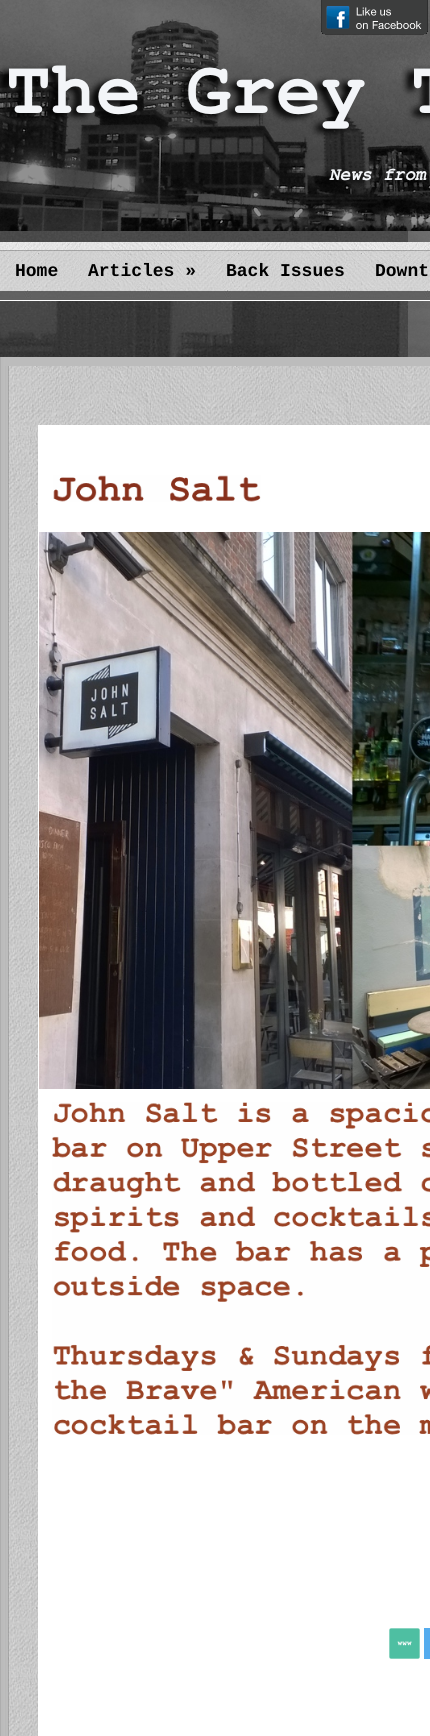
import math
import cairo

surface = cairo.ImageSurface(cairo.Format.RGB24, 430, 1736)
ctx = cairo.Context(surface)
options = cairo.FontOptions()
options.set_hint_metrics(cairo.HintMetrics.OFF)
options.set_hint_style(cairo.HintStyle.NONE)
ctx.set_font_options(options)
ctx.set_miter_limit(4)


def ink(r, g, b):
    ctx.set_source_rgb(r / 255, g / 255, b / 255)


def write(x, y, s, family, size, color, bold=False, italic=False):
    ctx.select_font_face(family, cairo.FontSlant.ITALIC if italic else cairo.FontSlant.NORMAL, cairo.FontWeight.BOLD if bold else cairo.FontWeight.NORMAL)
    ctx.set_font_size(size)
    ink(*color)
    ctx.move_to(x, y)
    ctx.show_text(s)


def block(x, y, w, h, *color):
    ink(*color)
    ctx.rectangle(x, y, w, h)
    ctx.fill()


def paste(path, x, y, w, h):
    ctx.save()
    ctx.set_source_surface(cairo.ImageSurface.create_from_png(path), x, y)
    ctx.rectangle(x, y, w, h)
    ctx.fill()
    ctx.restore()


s1 = dict(family="Liberation Mono", size=18, color=(0, 0, 0), bold=True)

ink(255, 255, 255)
ctx.paint()
paste("pic1.png", 0, 0, 430, 357)
paste("pic2.png", 321, 0, 107, 35)
paste("pic3.png", 0, 63, 430, 125)
paste("pic4.png", 0, 242, 430, 59)
write(15, 276, "Home", **s1)
write(88, 276, "Articles »", **s1)
write(226, 276, "Back Issues", **s1)
write(375, 276, "Downt", **s1)
paste("pic5.png", 0, 357, 430, 1379)
block(5, 357, 425, 9, 188, 188, 188)
block(38, 425, 392, 1311, 255, 255, 255)
paste("pic6.png", 53, 475, 208, 27)
paste("pic7.png", 39, 532, 391, 557)
paste("pic8.png", 52, 1102, 378, 333)
paste("pic9.png", 389, 1628, 31, 31)
block(424, 1628, 6, 31, 85, 172, 238)
surface.write_to_png("screenshot.png")
